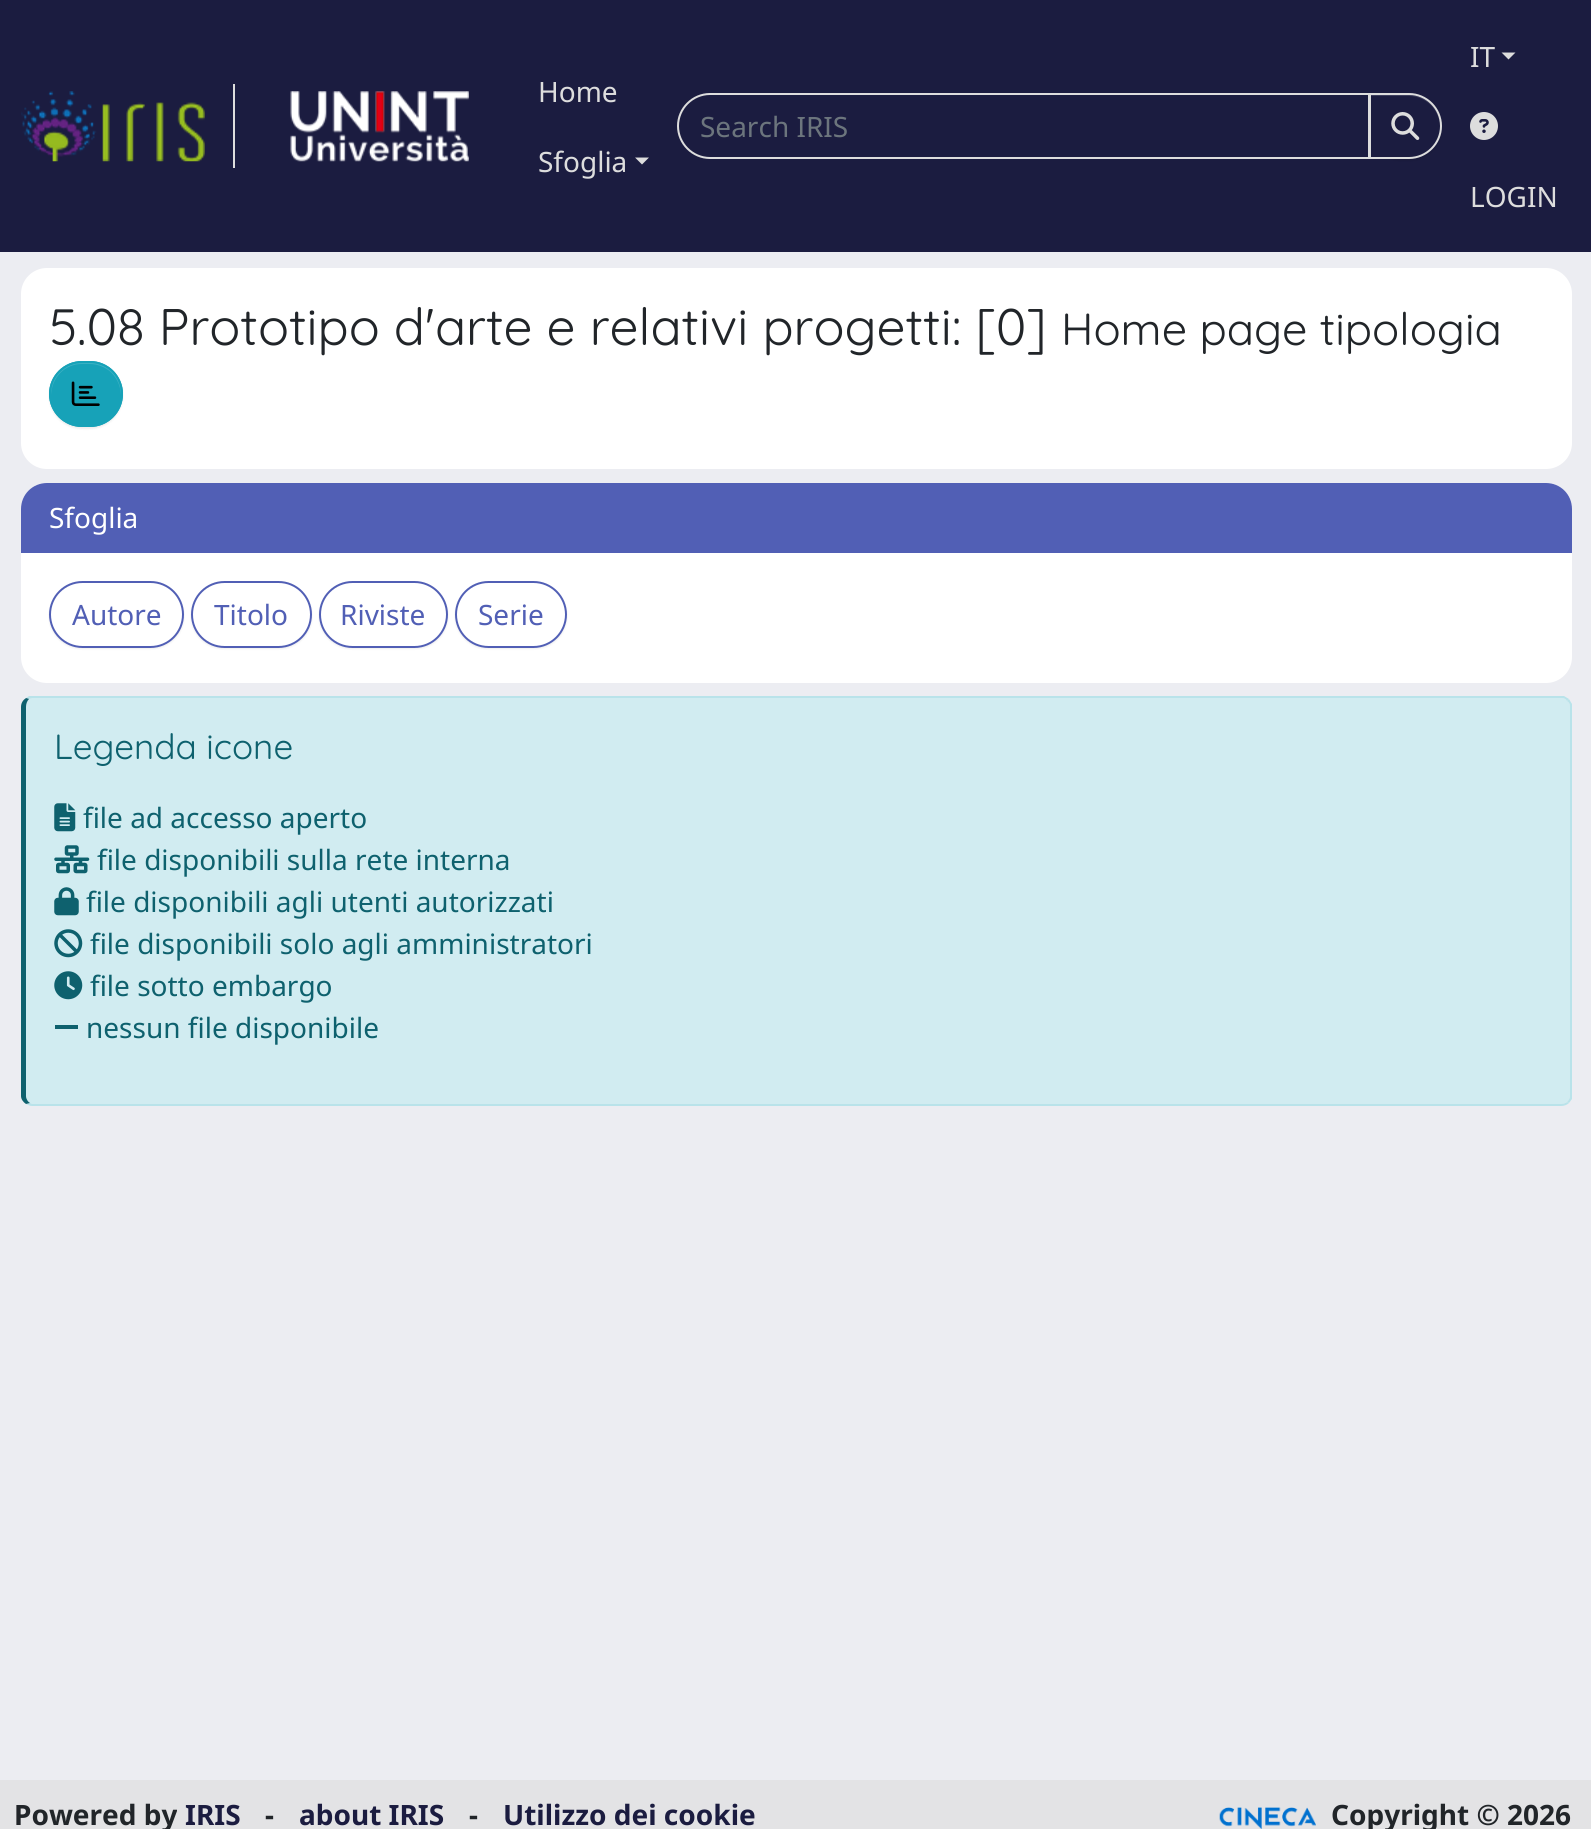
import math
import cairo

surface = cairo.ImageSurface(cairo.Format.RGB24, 1591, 1829)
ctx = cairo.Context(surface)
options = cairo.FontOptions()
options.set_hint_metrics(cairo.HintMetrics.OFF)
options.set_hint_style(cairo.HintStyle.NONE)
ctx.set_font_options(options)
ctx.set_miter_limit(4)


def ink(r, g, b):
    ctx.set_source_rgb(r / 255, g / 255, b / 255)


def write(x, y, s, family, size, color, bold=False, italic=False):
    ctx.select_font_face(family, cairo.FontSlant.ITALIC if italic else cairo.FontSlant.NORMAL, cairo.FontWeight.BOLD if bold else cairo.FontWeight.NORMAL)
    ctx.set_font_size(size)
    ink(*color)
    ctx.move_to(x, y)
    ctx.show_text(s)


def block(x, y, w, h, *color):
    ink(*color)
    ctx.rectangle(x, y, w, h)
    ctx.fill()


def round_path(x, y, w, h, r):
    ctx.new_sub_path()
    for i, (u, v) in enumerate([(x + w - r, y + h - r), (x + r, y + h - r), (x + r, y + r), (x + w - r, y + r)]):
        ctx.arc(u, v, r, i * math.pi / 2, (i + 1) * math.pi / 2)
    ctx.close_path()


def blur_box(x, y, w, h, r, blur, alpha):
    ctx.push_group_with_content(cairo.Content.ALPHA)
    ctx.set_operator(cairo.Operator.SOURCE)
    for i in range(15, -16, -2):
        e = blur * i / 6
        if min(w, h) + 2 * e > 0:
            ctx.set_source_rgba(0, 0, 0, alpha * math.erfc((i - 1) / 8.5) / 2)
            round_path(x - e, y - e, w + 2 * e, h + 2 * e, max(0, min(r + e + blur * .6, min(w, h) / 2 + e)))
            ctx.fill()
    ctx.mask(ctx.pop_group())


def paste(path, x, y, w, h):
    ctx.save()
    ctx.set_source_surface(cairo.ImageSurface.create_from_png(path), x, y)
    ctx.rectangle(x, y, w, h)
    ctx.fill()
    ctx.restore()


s1 = dict(family="Noto Sans", size=28, color=(221, 221, 221))
s2 = dict(family="Noto Sans", size=28, color=(108, 117, 125))
s3 = dict(family="Quicksand", size=51.4, color=(33, 37, 41))
s4 = dict(family="Quicksand", size=45, color=(33, 37, 41))
s5 = dict(family="Noto Sans", size=28, color=(255, 255, 255))
s6 = dict(family="Noto Sans", size=28, color=(81, 95, 181))
s7 = dict(family="Quicksand", size=35, color=(14, 97, 110))
s8 = dict(family="Noto Sans", size=28, color=(14, 97, 110))
s9 = dict(family="Noto Sans", size=28, color=(33, 37, 41), bold=True)
s10 = dict(family="Noto Sans", size=28, color=(27, 28, 64), bold=True)

ink(236, 237, 242)
ctx.paint()
block(0, 0, 1591, 252, 27, 28, 64)
block(233, 84, 2, 84, 221, 221, 221)
paste("pic1.png", 21, 91, 184, 71)
paste("pic2.png", 290, 91, 179, 71)
write(538, 102, "Home", **s1)
write(538, 172, "Sfoglia", **s1)
ctx.new_path()
ctx.move_to(635, 157.5)
ctx.line_to(649, 157.5)
ctx.line_to(642, 164.5)
ctx.close_path()
ctx.fill()
ctx.new_path()
ctx.move_to(710, 94)
ctx.line_to(1369, 94)
ctx.line_to(1369, 158)
ctx.line_to(710, 158)
ctx.curve_to(692.5, 158, 678, 143.5, 678, 126)
ctx.curve_to(678, 108.5, 692.5, 94, 710, 94)
ctx.close_path()
ctx.stroke()
write(700, 137, "Search IRIS", **s2)
ink(0, 0, 0)
blur_box(1369, 95, 73, 66, 33, 1, 0.07)
ink(27, 28, 64)
ctx.new_path()
ctx.move_to(1369, 93)
ctx.line_to(1409, 93)
ctx.curve_to(1427, 93, 1442, 108, 1442, 126)
ctx.curve_to(1442, 144, 1427, 159, 1409, 159)
ctx.line_to(1369, 159)
ctx.close_path()
ctx.fill()
ink(61, 62, 93)
ctx.new_path()
ctx.move_to(1370, 96)
ctx.line_to(1409, 96)
ctx.curve_to(1426, 96, 1440, 110, 1440, 127)
ctx.line_to(1440, 126)
ctx.curve_to(1440, 109, 1426, 95, 1408, 95)
ctx.line_to(1370, 95)
ctx.close_path()
ctx.fill()
ctx.new_path()
ctx.move_to(1370, 94)
ctx.line_to(1409, 94)
ctx.curve_to(1426.5, 94, 1441, 108.5, 1441, 126)
ctx.curve_to(1441, 143.5, 1426.5, 158, 1409, 158)
ctx.line_to(1370, 158)
ctx.close_path()
ink(221, 221, 221)
ctx.stroke()
paste("pic3.png", 1391, 112, 29, 28)
write(1470, 67, "IT", **s1)
ctx.new_path()
ctx.move_to(1501.5, 52.5)
ctx.line_to(1515.5, 52.5)
ctx.line_to(1508.5, 59.5)
ctx.close_path()
ctx.fill()
paste("pic4.png", 1470, 112, 28, 28)
write(1470, 207, "LOGIN", **s1)
ink(255, 255, 255)
round_path(21, 268, 1551, 201, 26)
ctx.fill()
write(49, 345, "5.08 Prototipo d'arte e relativi progetti: [0]", **s3)
write(1061, 345, "Home page tipologia", **s4)
ink(0, 0, 0)
blur_box(49, 362, 74, 67, 33.5, 1, 0.07)
ink(23, 162, 184)
round_path(49, 361, 74, 66, 33)
ctx.fill()
ink(58, 176, 195)
ctx.new_path()
ctx.move_to(82, 364)
ctx.line_to(89, 364)
ctx.curve_to(107, 364, 120, 377, 121, 395)
ctx.curve_to(123, 351, 49, 351, 51, 395)
ctx.curve_to(52, 377, 65, 364, 82, 364)
ctx.close_path()
ctx.fill()
round_path(50, 362, 72, 64, 32)
ink(23, 162, 184)
ctx.stroke()
paste("pic5.png", 71, 381, 29, 25)
ink(255, 255, 255)
round_path(21, 483, 1551, 200, 26)
ctx.fill()
ink(81, 95, 181)
ctx.new_path()
ctx.move_to(47, 483)
ctx.line_to(1546, 483)
ctx.curve_to(1560.5, 483, 1572, 494.5, 1572, 509)
ctx.line_to(1572, 553)
ctx.line_to(21, 553)
ctx.line_to(21, 509)
ctx.curve_to(21, 494.5, 32.5, 483, 47, 483)
ctx.close_path()
ctx.fill()
write(49, 528, "Sfoglia", **s5)
ctx.save()
ctx.set_fill_rule(cairo.FillRule.EVEN_ODD)
ctx.new_path()
ctx.move_to(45, 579)
ctx.line_to(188, 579)
ctx.line_to(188, 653)
ctx.line_to(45, 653)
ctx.close_path()
ctx.move_to(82.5, 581)
ctx.line_to(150.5, 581)
ctx.curve_to(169, 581, 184, 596, 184, 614.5)
ctx.curve_to(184, 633, 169, 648, 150.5, 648)
ctx.line_to(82.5, 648)
ctx.curve_to(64, 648, 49, 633, 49, 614.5)
ctx.curve_to(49, 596, 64, 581, 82.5, 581)
ctx.close_path()
ctx.clip()
ink(0, 0, 0)
blur_box(49, 583, 135, 66, 33, 1, 0.07)
ctx.restore()
round_path(50, 582, 133, 65, 32.5)
ink(81, 95, 181)
ctx.stroke()
write(72, 625, "Autore", **s6)
ctx.save()
ctx.set_fill_rule(cairo.FillRule.EVEN_ODD)
ctx.new_path()
ctx.move_to(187, 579)
ctx.line_to(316, 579)
ctx.line_to(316, 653)
ctx.line_to(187, 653)
ctx.close_path()
ctx.move_to(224.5, 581)
ctx.line_to(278.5, 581)
ctx.curve_to(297, 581, 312, 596, 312, 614.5)
ctx.curve_to(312, 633, 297, 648, 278.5, 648)
ctx.line_to(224.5, 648)
ctx.curve_to(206, 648, 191, 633, 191, 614.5)
ctx.curve_to(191, 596, 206, 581, 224.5, 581)
ctx.close_path()
ctx.clip()
ink(0, 0, 0)
blur_box(191, 583, 121, 66, 33, 1, 0.07)
ctx.restore()
round_path(192, 582, 119, 65, 32.5)
ctx.stroke()
write(214, 625, "Titolo", **s6)
ctx.save()
ctx.set_fill_rule(cairo.FillRule.EVEN_ODD)
ctx.new_path()
ctx.move_to(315, 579)
ctx.line_to(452, 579)
ctx.line_to(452, 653)
ctx.line_to(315, 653)
ctx.close_path()
ctx.move_to(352.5, 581)
ctx.line_to(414.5, 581)
ctx.curve_to(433, 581, 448, 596, 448, 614.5)
ctx.curve_to(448, 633, 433, 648, 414.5, 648)
ctx.line_to(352.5, 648)
ctx.curve_to(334, 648, 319, 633, 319, 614.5)
ctx.curve_to(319, 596, 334, 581, 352.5, 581)
ctx.close_path()
ctx.clip()
ink(0, 0, 0)
blur_box(319, 583, 129, 66, 33, 1, 0.07)
ctx.restore()
round_path(320, 582, 127, 65, 32.5)
ctx.stroke()
write(340, 625, "Riviste", **s6)
ctx.save()
ctx.set_fill_rule(cairo.FillRule.EVEN_ODD)
ctx.new_path()
ctx.move_to(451, 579)
ctx.line_to(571, 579)
ctx.line_to(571, 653)
ctx.line_to(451, 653)
ctx.close_path()
ctx.move_to(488.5, 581)
ctx.line_to(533.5, 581)
ctx.curve_to(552, 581, 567, 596, 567, 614.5)
ctx.curve_to(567, 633, 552, 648, 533.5, 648)
ctx.line_to(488.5, 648)
ctx.curve_to(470, 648, 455, 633, 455, 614.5)
ctx.curve_to(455, 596, 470, 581, 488.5, 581)
ctx.close_path()
ctx.clip()
ink(0, 0, 0)
blur_box(455, 583, 112, 66, 33, 1, 0.07)
ctx.restore()
round_path(456, 582, 110, 65, 32.5)
ctx.stroke()
write(478, 625, "Serie", **s6)
ink(209, 236, 241)
ctx.new_path()
ctx.move_to(32, 698)
ctx.line_to(1561, 698)
ctx.curve_to(1566, 698, 1570, 702, 1570, 707)
ctx.line_to(1570, 1096)
ctx.curve_to(1570, 1100, 1566, 1104, 1561, 1104)
ctx.line_to(32, 1104)
ctx.curve_to(29, 1104, 26, 1100, 26, 1096)
ctx.line_to(26, 707)
ctx.curve_to(26, 702, 29, 698, 32, 698)
ctx.close_path()
ctx.fill()
ink(185, 227, 234)
ctx.new_path()
ctx.move_to(32, 698)
ctx.line_to(29, 699)
ctx.line_to(26, 698)
ctx.line_to(29, 696)
ctx.line_to(1564, 696)
ctx.line_to(1569, 699)
ctx.line_to(1567, 701)
ctx.curve_to(1566, 699, 1564, 698, 1561, 698)
ctx.close_path()
ctx.fill()
ctx.new_path()
ctx.move_to(1572, 1099)
ctx.line_to(1569, 1103)
ctx.line_to(1567, 1102)
ctx.curve_to(1569, 1100, 1570, 1098, 1570, 1096)
ctx.line_to(1570, 707)
ctx.curve_to(1570, 704, 1569, 702, 1567, 701)
ctx.line_to(1569, 699)
ctx.curve_to(1570, 701, 1571, 702, 1572, 704)
ctx.close_path()
ctx.fill()
ctx.new_path()
ctx.move_to(32, 1106)
ctx.line_to(1561, 1106)
ctx.curve_to(1564, 1106, 1567, 1105, 1569, 1103)
ctx.line_to(1567, 1102)
ctx.curve_to(1566, 1103, 1563, 1104, 1561, 1104)
ctx.line_to(32, 1104)
ctx.line_to(30, 1103)
ctx.line_to(26, 1104)
ctx.curve_to(28, 1105, 30, 1106, 32, 1106)
ctx.close_path()
ctx.fill()
ink(14, 97, 110)
ctx.new_path()
ctx.move_to(21, 707)
ctx.line_to(21, 1096)
ctx.curve_to(21, 1099, 23, 1102, 26, 1104)
ctx.line_to(30, 1103)
ctx.curve_to(28, 1102, 26, 1099, 26, 1096)
ctx.line_to(26, 707)
ctx.curve_to(26, 704, 27, 701, 29, 699)
ctx.line_to(26, 698)
ctx.curve_to(23, 700, 21, 703, 21, 707)
ctx.close_path()
ctx.fill()
write(54, 759, "Legenda icone", **s7)
paste("pic6.png", 54, 803, 22, 29)
write(83, 828, "file ad accesso aperto", **s8)
paste("pic7.png", 54, 845, 36, 29)
write(97, 870, "file disponibili sulla rete interna", **s8)
paste("pic8.png", 54, 887, 25, 29)
write(86, 912, "file disponibili agli utenti autorizzati", **s8)
paste("pic9.png", 54, 929, 29, 29)
write(90, 954, "file disponibili solo agli amministratori", **s8)
paste("pic10.png", 54, 971, 29, 29)
write(90, 996, "file sotto embargo", **s8)
block(55, 1025, 23, 4, 14, 97, 110)
write(86, 1038, "nessun file disponibile", **s8)
block(0, 1780, 1591, 49, 227, 227, 229)
write(14, 1825, "Powered by", **s9)
write(185, 1825, "IRIS", **s10)
write(265, 1825, "-", **s9)
write(299, 1825, "about IRIS", **s10)
write(469, 1825, "-", **s9)
write(503, 1825, "Utilizzo dei cookie", **s10)
paste("pic11.png", 1219, 1807, 97, 22)
write(1331, 1825, "Copyright © 2026", **s9)
surface.write_to_png("screenshot.png")
